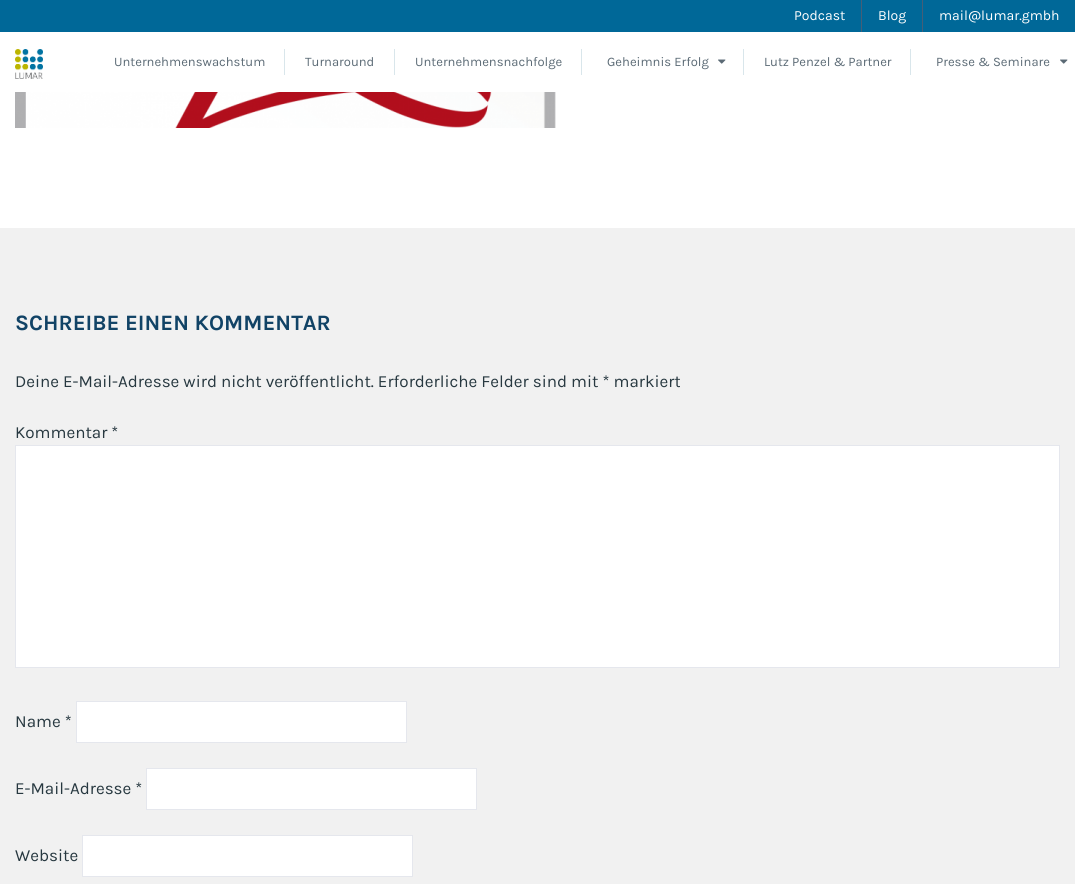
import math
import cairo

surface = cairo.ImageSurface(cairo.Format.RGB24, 1075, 884)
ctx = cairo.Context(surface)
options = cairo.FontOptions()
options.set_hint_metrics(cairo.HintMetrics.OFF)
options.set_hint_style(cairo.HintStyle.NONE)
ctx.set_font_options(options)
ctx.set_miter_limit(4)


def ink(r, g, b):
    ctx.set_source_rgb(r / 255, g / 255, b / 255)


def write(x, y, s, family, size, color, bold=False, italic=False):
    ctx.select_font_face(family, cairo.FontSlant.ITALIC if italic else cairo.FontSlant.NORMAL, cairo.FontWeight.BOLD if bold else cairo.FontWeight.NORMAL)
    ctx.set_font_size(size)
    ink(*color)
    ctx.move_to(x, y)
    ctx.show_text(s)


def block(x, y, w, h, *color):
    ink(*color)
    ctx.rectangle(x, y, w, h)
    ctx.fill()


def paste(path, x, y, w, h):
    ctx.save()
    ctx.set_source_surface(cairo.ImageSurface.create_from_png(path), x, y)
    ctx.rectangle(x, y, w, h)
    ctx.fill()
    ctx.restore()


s1 = dict(family="Karla", size=14, color=(255, 255, 255))
s2 = dict(family="Karla", size=13, color=(91, 106, 117))
s3 = dict(family="Karla", size=22, color=(17, 67, 102), bold=True)
s4 = dict(family="Karla", size=17, color=(39, 56, 64))

ink(255, 255, 255)
ctx.paint()
block(0, 0, 1075, 32, 0, 104, 152)
write(794, 20, "Podcast", **s1)
block(861, 0, 1, 32, 69, 94, 119)
write(878, 20, "Blog", **s1)
block(922, 0, 1, 32, 69, 94, 119)
write(939, 20, "mail@lumar.gmbh", **s1)
paste("pic1.png", 15, 49, 28, 30)
write(114, 66, "Unternehmenswachstum", **s2)
block(284, 49, 1, 26, 217, 230, 235)
write(305, 66, "Turnaround", **s2)
block(394, 49, 1, 26, 217, 230, 235)
write(415, 66, "Unternehmensnachfolge", **s2)
block(581, 49, 1, 26, 217, 230, 235)
write(607, 66, "Geheimnis Erfolg", **s2)
paste("pic2.png", 718, 59, 8, 5)
block(743, 49, 1, 26, 217, 230, 235)
write(764, 66, "Lutz Penzel & Partner", **s2)
block(910, 49, 1, 26, 217, 230, 235)
write(936, 66, "Presse & Seminare", **s2)
paste("pic2.png", 1060, 59, 8, 5)
paste("pic3.png", 15, 92, 541, 36)
block(0, 228, 1075, 656, 241, 241, 241)
write(15, 330, "SCHREIBE EINEN KOMMENTAR", **s3)
write(15, 387, "Deine E-Mail-Adresse wird nicht veröffentlicht. Erforderliche Felder sind mit * markiert", **s4)
write(15, 438, "Kommentar *", **s4)
ink(255, 255, 255)
ctx.rectangle(15.5, 445.5, 1044, 222)
ctx.fill_preserve()
ink(229, 231, 237)
ctx.set_line_width(1)
ctx.stroke()
write(15, 727, "Name *", **s4)
ink(255, 255, 255)
ctx.rectangle(76.5, 701.5, 330, 41)
ctx.fill_preserve()
ink(229, 231, 237)
ctx.stroke()
write(15, 794, "E-Mail-Adresse *", **s4)
ink(255, 255, 255)
ctx.rectangle(146.5, 768.5, 330, 41)
ctx.fill_preserve()
ink(229, 231, 237)
ctx.stroke()
write(15, 861, "Website", **s4)
ink(255, 255, 255)
ctx.rectangle(82.5, 835.5, 330, 41)
ctx.fill_preserve()
ink(229, 231, 237)
ctx.stroke()
surface.write_to_png("screenshot.png")
